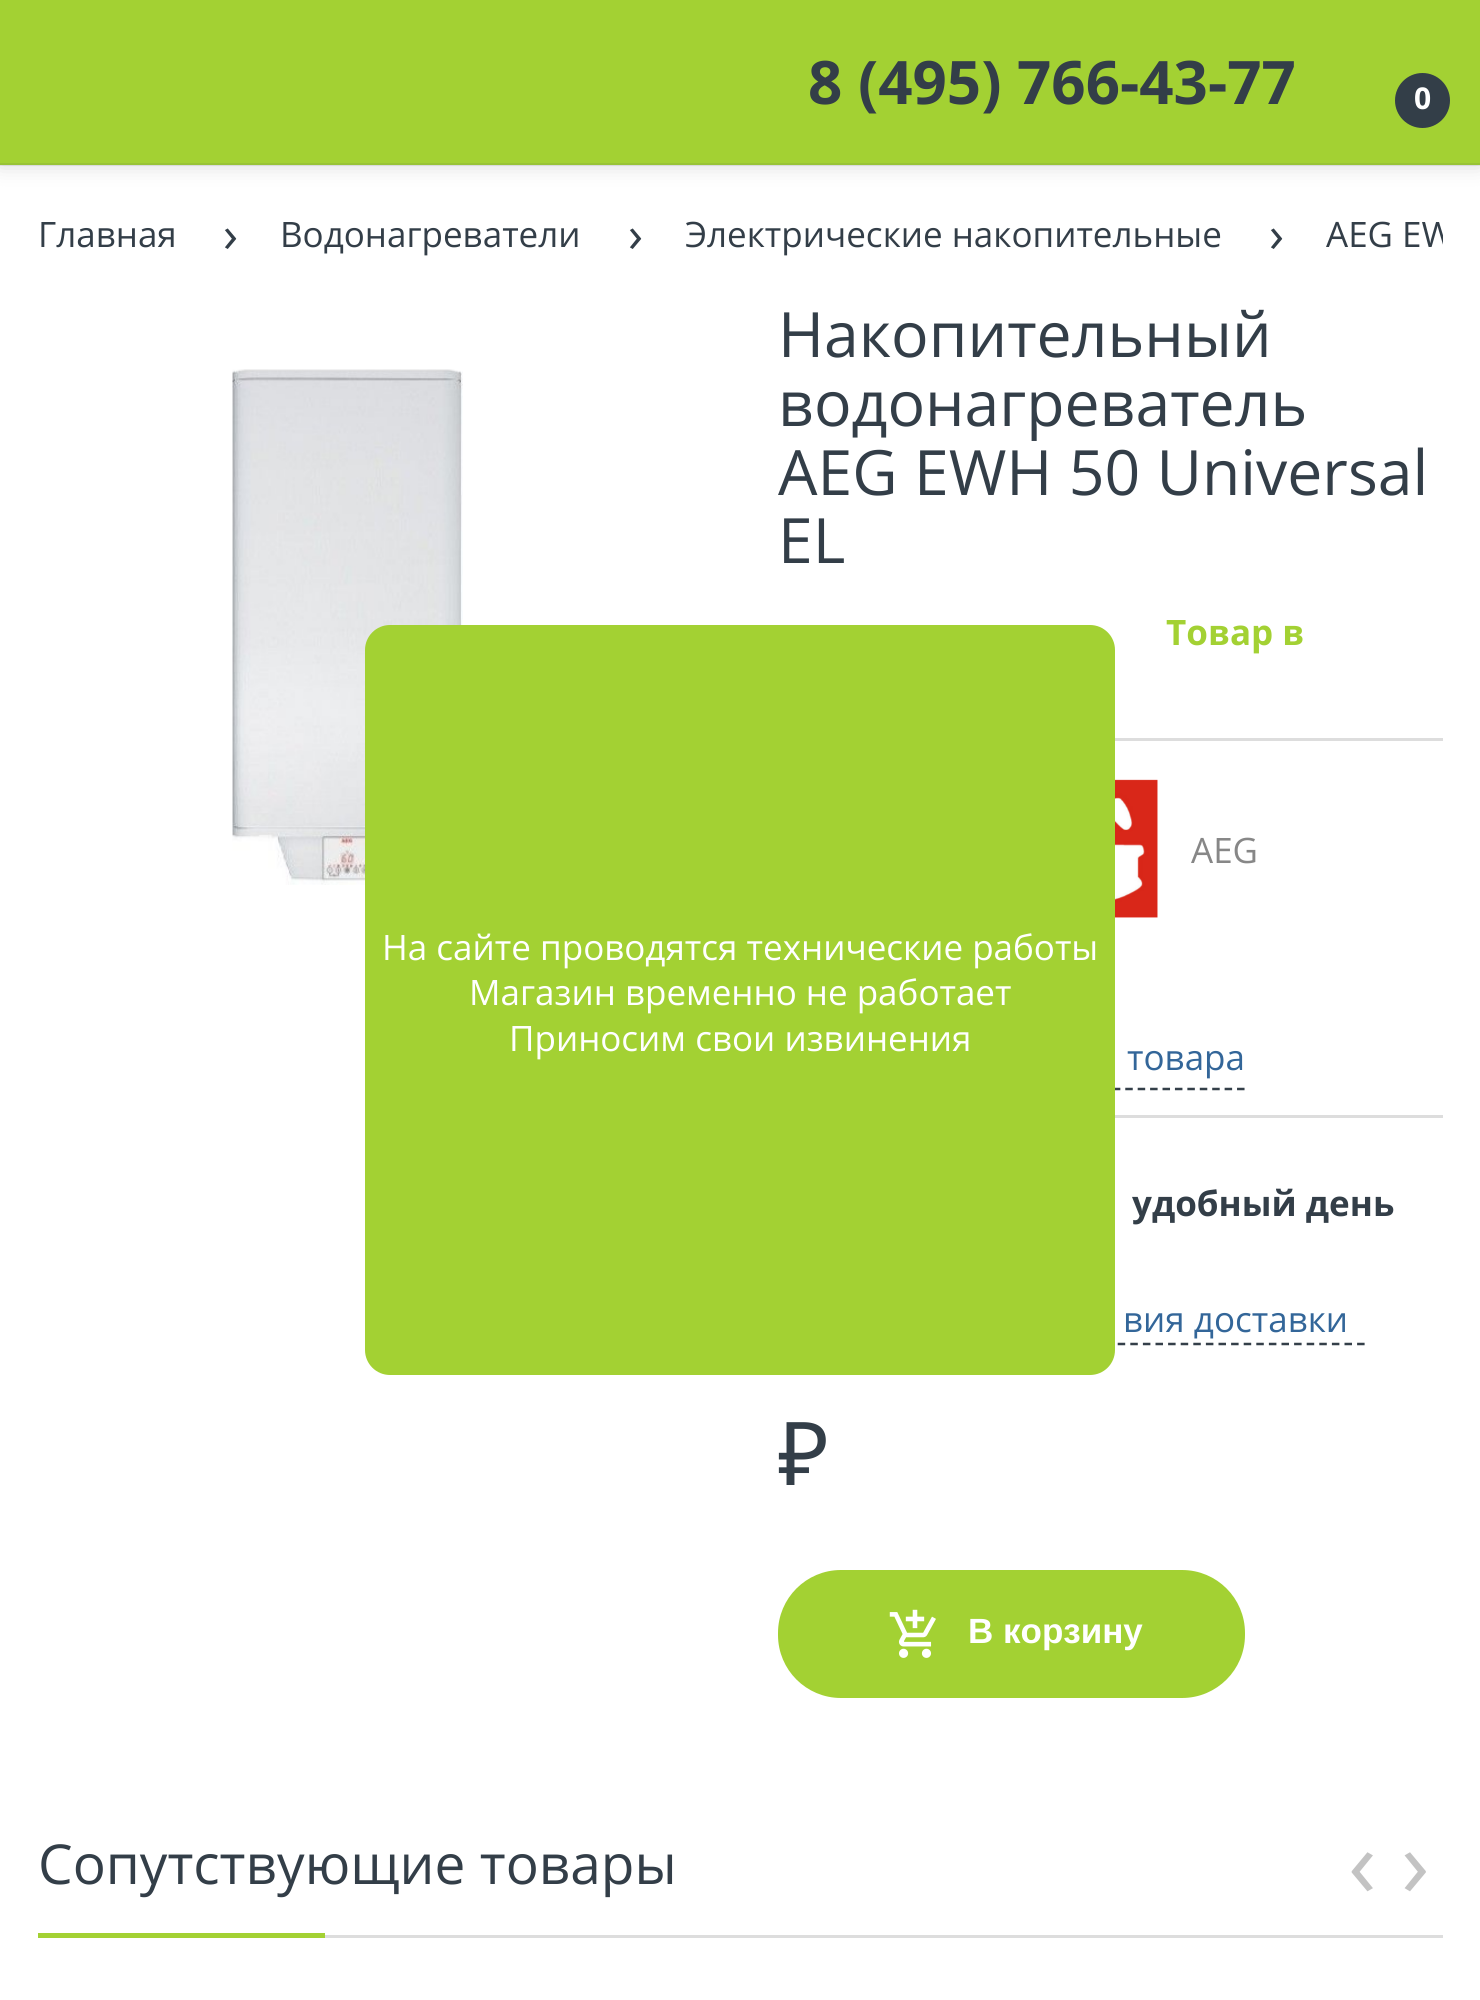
import math
import cairo

surface = cairo.ImageSurface(cairo.Format.RGB24, 1480, 2000)
ctx = cairo.Context(surface)
options = cairo.FontOptions()
options.set_hint_metrics(cairo.HintMetrics.OFF)
options.set_hint_style(cairo.HintStyle.NONE)
ctx.set_font_options(options)
ctx.set_miter_limit(4)


def ink(r, g, b):
    ctx.set_source_rgb(r / 255, g / 255, b / 255)


def write(x, y, s, family, size, color, bold=False, italic=False):
    ctx.select_font_face(family, cairo.FontSlant.ITALIC if italic else cairo.FontSlant.NORMAL, cairo.FontWeight.BOLD if bold else cairo.FontWeight.NORMAL)
    ctx.set_font_size(size)
    ink(*color)
    ctx.move_to(x, y)
    ctx.show_text(s)


def block(x, y, w, h, *color):
    ink(*color)
    ctx.rectangle(x, y, w, h)
    ctx.fill()


def round_path(x, y, w, h, r):
    ctx.new_sub_path()
    for i, (u, v) in enumerate([(x + w - r, y + h - r), (x + r, y + h - r), (x + r, y + r), (x + w - r, y + r)]):
        ctx.arc(u, v, r, i * math.pi / 2, (i + 1) * math.pi / 2)
    ctx.close_path()


def blur_box(x, y, w, h, r, blur, alpha):
    ctx.push_group_with_content(cairo.Content.ALPHA)
    ctx.set_operator(cairo.Operator.SOURCE)
    for i in range(15, -16, -2):
        e = blur * i / 6
        if min(w, h) + 2 * e > 0:
            ctx.set_source_rgba(0, 0, 0, alpha * math.erfc((i - 1) / 8.5) / 2)
            round_path(x - e, y - e, w + 2 * e, h + 2 * e, max(0, min(r + e + blur * .6, min(w, h) / 2 + e)))
            ctx.fill()
    ctx.mask(ctx.pop_group())


def paste(path, x, y, w, h):
    ctx.save()
    ctx.set_source_surface(cairo.ImageSurface.create_from_png(path), x, y)
    ctx.rectangle(x, y, w, h)
    ctx.fill()
    ctx.restore()


s1 = dict(family="Open Sans", size=60, color=(51, 62, 72), bold=True)
s2 = dict(family="Open Sans", size=30, color=(255, 255, 255), bold=True)
s3 = dict(family="Open Sans", size=35, color=(51, 62, 72))
s4 = dict(family="Open Sans", size=50, color=(51, 62, 72))
s5 = dict(family="Open Sans", size=62.5, color=(51, 62, 72))
s6 = dict(family="Open Sans", size=35, color=(163, 209, 51), bold=True)
s7 = dict(family="Open Sans", size=35, color=(135, 135, 135))
s8 = dict(family="Open Sans", size=35, color=(51, 102, 153))
s9 = dict(family="Open Sans", size=35, color=(51, 62, 72), bold=True)
s10 = dict(family="Noto Sans", size=88, color=(51, 62, 72))
s11 = dict(family="Liberation Sans", size=35, color=(255, 255, 255), bold=True)
s12 = dict(family="Open Sans", size=55, color=(51, 62, 72))
s13 = dict(family="Open Sans", size=95, color=(195, 195, 195))
s14 = dict(family="Open Sans", size=35, color=(255, 255, 255))

ink(255, 255, 255)
ctx.paint()
ink(201, 201, 201)
blur_box(0, 0, 1480, 165, 0, 10, 0.75)
block(0, 0, 1480, 165, 163, 209, 51)
ctx.set_source_rgba(0.2, 0.243, 0.282, 0.1)
ctx.rectangle(0, 163, 1480, 3)
ctx.fill()
write(808, 104, "8 (495) 766-43-77", **s1)
ctx.new_path()
ctx.arc(1422.5, 100.5, 27.5, 0, 2 * math.pi)
ctx.fill()
write(1414, 109, "0", **s2)
write(38, 247, "Главная", **s3)
write(223, 252, "›", **s4)
write(280, 247, "Водонагреватели", **s3)
write(628, 252, "›", **s4)
write(685, 247, "Электрические накопительные", **s3)
write(1269, 252, "›", **s4)
ctx.save()
ctx.rectangle(38, 185, 1405, 95)
ctx.clip()
write(1326, 247, "AEG EW", **s3)
ctx.restore()
paste("pic1.png", 232, 369, 231, 516)
write(778, 357, "Накопительный", **s5)
write(778, 426, "водонагреватель", **s5)
write(778, 495, "AEG EWH 50 Universal", **s5)
write(778, 563, "EL", **s5)
block(1115, 738, 328, 3, 221, 221, 221)
write(1166, 645, "Товар в", **s6)
paste("pic2.png", 1115, 779, 43, 139)
write(1191, 863, "AEG", **s7)
block(1115, 1115, 328, 3, 221, 221, 221)
ctx.new_path()
ctx.move_to(777.5, 1089)
ctx.line_to(1245, 1089)
ink(52, 63, 73)
ctx.set_line_width(2.5)
ctx.set_dash([7.5, 4.92])
ctx.stroke()
write(1127, 1070, "товара", **s8)
write(1132, 1216, "удобный день", **s9)
ctx.new_path()
ctx.move_to(777.5, 1344)
ctx.line_to(1365, 1344)
ink(52, 63, 73)
ctx.set_dash([7.5, 5.1])
ctx.stroke()
write(1123, 1332, "вия доставки", **s8)
write(778, 1485, "₽", **s10)
ink(163, 209, 51)
round_path(779.5, 1571.5, 464, 125, 61.5)
ctx.fill_preserve()
ctx.set_line_width(3)
ctx.set_dash([])
ctx.stroke()
paste("pic3.png", 889, 1609, 47, 49)
write(968, 1643, "В корзину", **s11)
block(325, 1935, 1118, 3, 221, 221, 221)
write(38, 1884, "Сопутствующие товары", **s12)
block(38, 1933, 287, 5, 163, 209, 51)
write(1348, 1897, "‹", **s13)
write(1401, 1897, "›", **s13)
ink(163, 209, 51)
round_path(365, 625, 750, 750, 25)
ctx.fill()
write(382, 960, "На сайте проводятся технические работы", **s14)
write(469, 1005, "Магазин временно не работает", **s14)
write(509, 1051, "Приносим свои извинения", **s14)
surface.write_to_png("screenshot.png")
